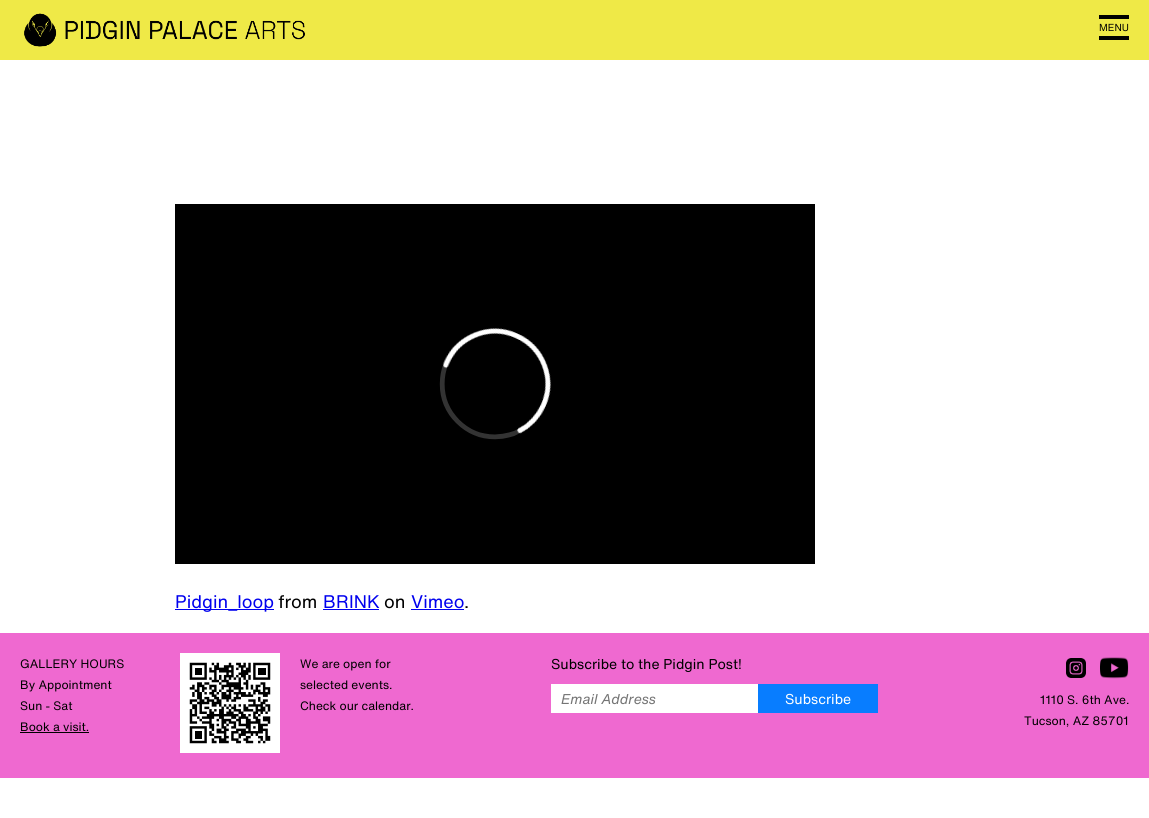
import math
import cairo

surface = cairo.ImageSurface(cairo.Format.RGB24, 1149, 818)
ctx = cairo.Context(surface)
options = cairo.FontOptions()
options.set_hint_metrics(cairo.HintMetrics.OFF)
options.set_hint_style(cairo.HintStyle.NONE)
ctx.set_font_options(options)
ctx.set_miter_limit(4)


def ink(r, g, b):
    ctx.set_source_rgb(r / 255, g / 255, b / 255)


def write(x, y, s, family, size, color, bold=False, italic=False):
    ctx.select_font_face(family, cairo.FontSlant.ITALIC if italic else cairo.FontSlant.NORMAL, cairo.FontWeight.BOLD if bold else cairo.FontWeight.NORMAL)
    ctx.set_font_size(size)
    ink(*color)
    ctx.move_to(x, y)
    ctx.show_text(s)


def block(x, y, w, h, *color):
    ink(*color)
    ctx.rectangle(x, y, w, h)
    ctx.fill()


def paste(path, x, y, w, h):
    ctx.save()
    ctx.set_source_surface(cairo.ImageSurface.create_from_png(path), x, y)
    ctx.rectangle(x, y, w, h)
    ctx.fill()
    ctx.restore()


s1 = dict(family="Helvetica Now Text", size=10, color=(0, 0, 0))
s2 = dict(family="Helvetica Now Text", size=18, color=(0, 0, 238))
s3 = dict(family="Helvetica Now Text", size=18, color=(0, 0, 0))
s4 = dict(family="Helvetica Now Text", size=12, color=(0, 0, 0))
s5 = dict(family="Helvetica Now Text", size=14, color=(0, 0, 0))
s6 = dict(family="Helvetica Now Text", size=14, color=(117, 117, 117), italic=True)
s7 = dict(family="Helvetica Now Text", size=14, color=(255, 255, 255))

ink(255, 255, 255)
ctx.paint()
block(0, 0, 1149, 60, 239, 233, 71)
paste("pic1.png", 24, 13, 281, 34)
block(1099, 15, 30, 4, 0, 0, 0)
write(1099, 31, "MENU", **s1)
block(1099, 36, 30, 4, 0, 0, 0)
paste("pic2.png", 175, 204, 640, 360)
block(175, 609, 99, 1, 0, 0, 238)
write(175, 608, "Pidgin_loop", **s2)
write(278, 608, "from", **s3)
write(323, 608, "BRINK", **s2)
block(323, 609, 56, 1, 0, 0, 238)
write(384, 608, "on", **s3)
write(411, 608, "Vimeo", **s2)
block(411, 609, 53, 1, 0, 0, 238)
write(464, 608, ".", **s3)
block(0, 633, 1149, 145, 239, 105, 208)
write(20, 668, "GALLERY HOURS", **s4)
write(20, 689, "By Appointment", **s4)
write(20, 710, "Sun - Sat", **s4)
write(20, 731, "Book a visit.", **s4)
block(20, 732, 69, 1, 0, 0, 0)
paste("pic3.png", 180, 653, 100, 100)
write(300, 668, "We are open for", **s4)
write(300, 689, "selected events.", **s4)
write(300, 710, "Check our calendar.", **s4)
write(551, 669, "Subscribe to the Pidgin Post!", **s5)
block(551, 684, 207, 29, 255, 255, 255)
write(561, 704, "Email Address", **s6)
block(758, 684, 120, 29, 8, 125, 255)
write(785, 704, "Subscribe", **s7)
paste("pic4.png", 1066, 658, 20, 20)
paste("pic5.png", 1100, 657, 29, 22)
write(1040, 704, "1110 S. 6th Ave.", **s4)
write(1024, 725, "Tucson, AZ 85701", **s4)
surface.write_to_png("screenshot.png")
